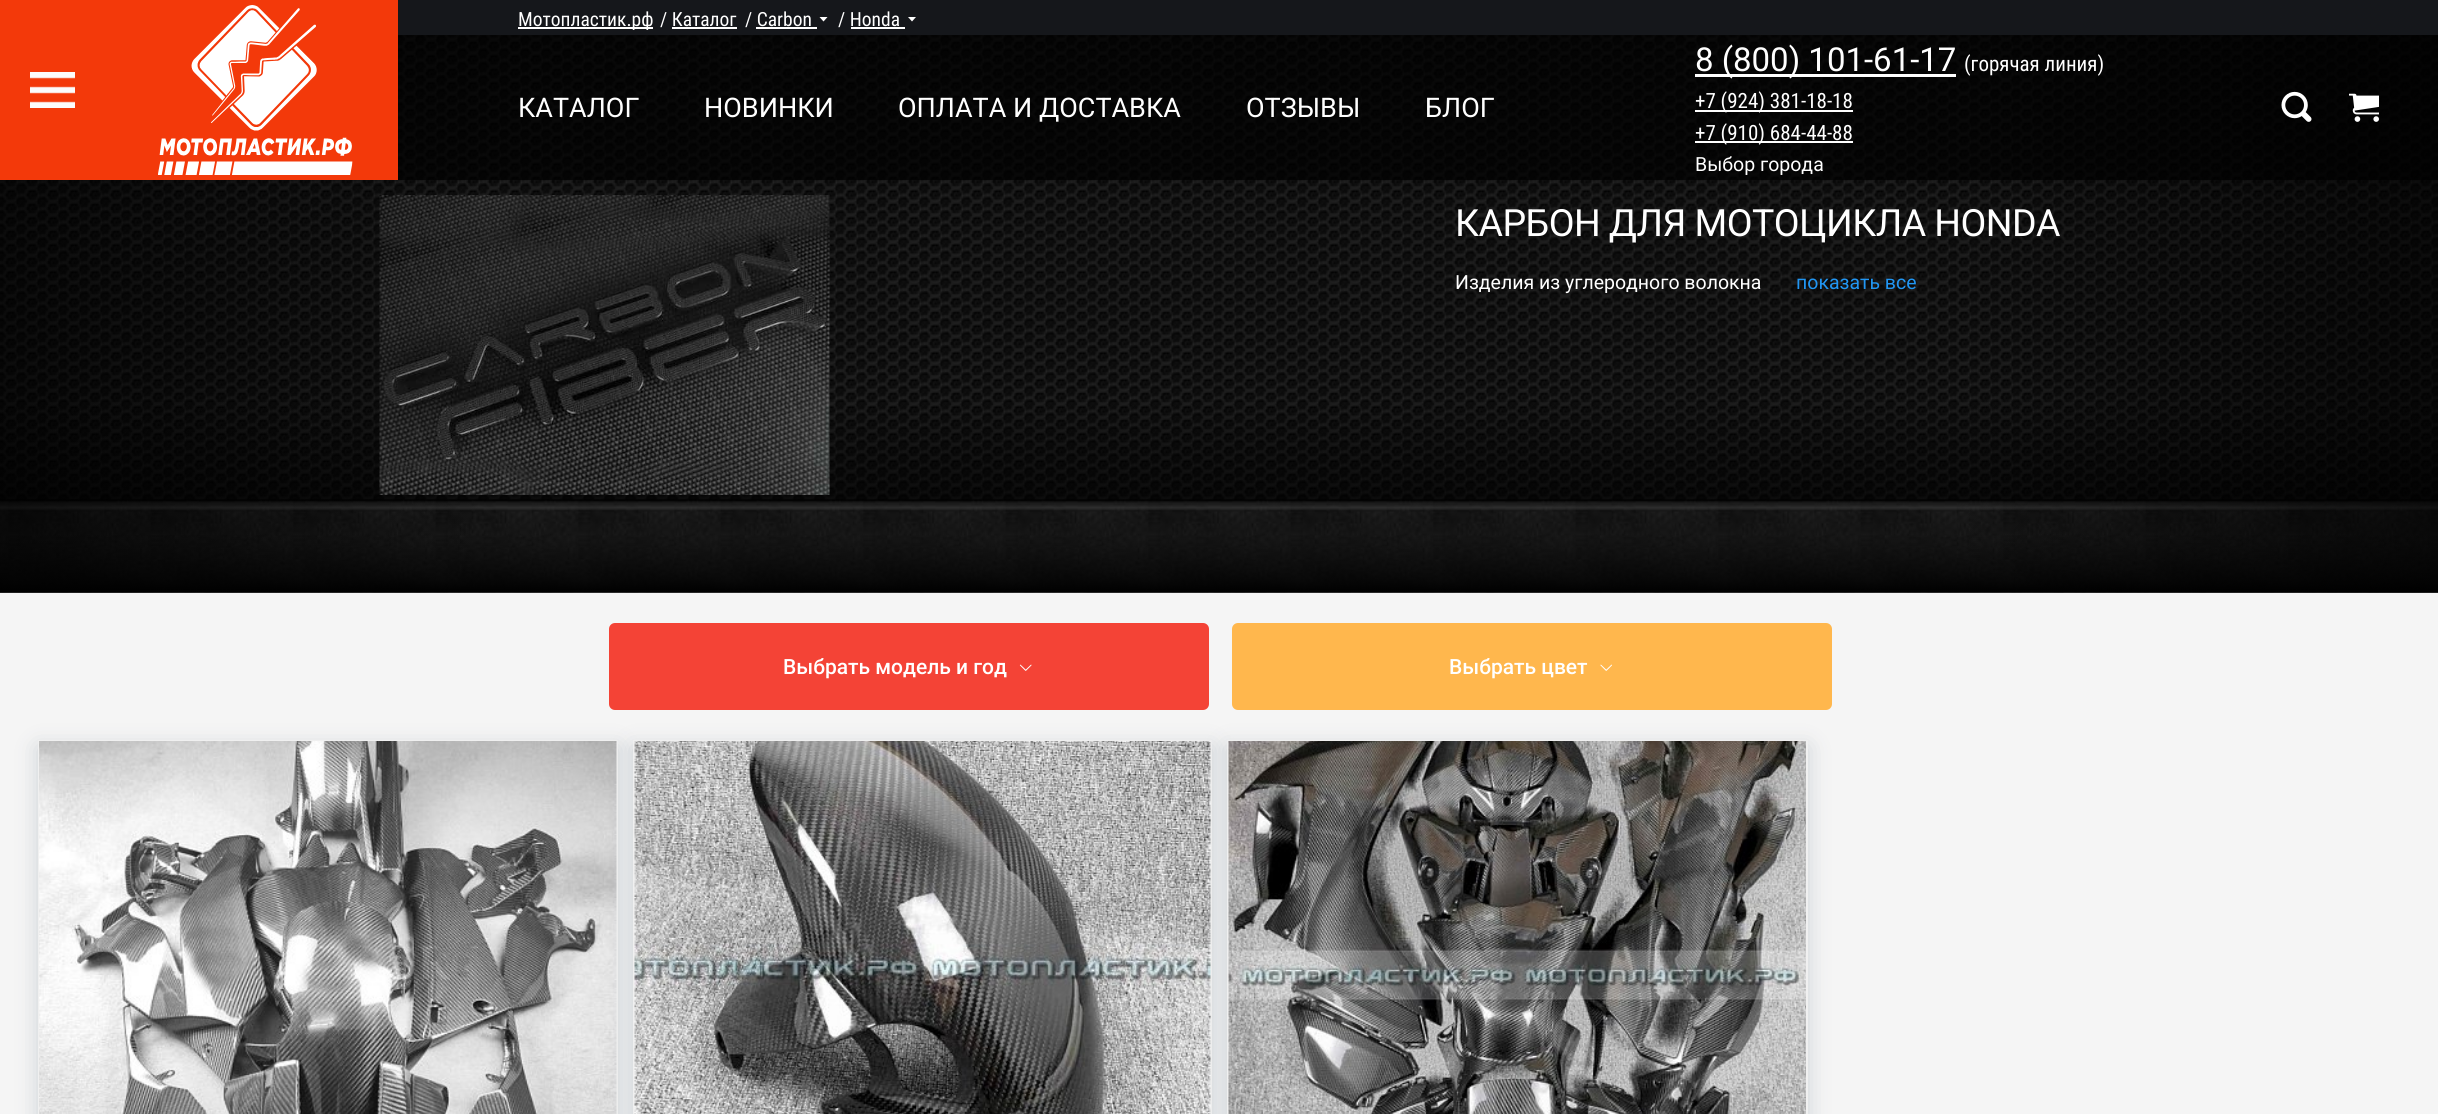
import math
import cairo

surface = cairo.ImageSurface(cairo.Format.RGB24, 2438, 1114)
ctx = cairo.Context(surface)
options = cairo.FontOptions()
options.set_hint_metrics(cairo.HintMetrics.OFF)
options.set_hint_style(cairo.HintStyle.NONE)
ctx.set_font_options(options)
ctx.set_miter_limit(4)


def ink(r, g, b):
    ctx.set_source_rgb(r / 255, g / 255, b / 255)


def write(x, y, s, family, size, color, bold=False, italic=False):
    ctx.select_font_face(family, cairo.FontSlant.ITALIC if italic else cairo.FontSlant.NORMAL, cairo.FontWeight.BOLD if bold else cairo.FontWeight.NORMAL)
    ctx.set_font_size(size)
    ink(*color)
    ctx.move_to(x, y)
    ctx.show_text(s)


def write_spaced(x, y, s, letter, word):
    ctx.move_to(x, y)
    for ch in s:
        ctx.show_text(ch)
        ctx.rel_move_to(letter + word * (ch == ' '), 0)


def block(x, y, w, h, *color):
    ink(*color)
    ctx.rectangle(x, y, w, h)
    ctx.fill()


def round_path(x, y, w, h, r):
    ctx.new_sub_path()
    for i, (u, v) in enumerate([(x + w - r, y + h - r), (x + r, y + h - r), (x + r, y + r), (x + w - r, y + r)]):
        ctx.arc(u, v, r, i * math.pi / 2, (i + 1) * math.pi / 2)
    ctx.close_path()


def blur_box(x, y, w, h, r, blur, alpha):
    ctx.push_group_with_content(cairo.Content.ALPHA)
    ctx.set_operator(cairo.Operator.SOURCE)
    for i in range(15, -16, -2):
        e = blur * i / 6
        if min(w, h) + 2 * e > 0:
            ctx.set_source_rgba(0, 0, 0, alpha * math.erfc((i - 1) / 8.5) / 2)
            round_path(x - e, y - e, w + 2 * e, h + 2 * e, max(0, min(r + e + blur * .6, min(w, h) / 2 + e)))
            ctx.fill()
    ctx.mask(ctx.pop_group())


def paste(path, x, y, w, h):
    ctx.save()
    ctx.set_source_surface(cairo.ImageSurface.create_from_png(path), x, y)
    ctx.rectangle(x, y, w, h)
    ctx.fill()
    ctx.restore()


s1 = dict(family="Roboto Condensed", size=19.5, color=(255, 255, 255))
s2 = dict(family="Roboto", size=27, color=(255, 255, 255))
s3 = dict(family="Roboto", size=33, color=(255, 255, 255))
s4 = dict(family="Roboto Condensed", size=21, color=(255, 255, 255))
s5 = dict(family="Roboto", size=19.5, color=(255, 255, 255))
s6 = dict(family="Roboto", size=19.5, color=(33, 150, 243))
s7 = dict(family="Roboto Medium", size=21, color=(255, 255, 255))

ink(245, 245, 245)
ctx.paint()
paste("pic5.png", 0, 35, 2438, 558)
ctx.set_source_rgba(0, 0, 0, 0.7)
ctx.rectangle(398, 35, 2040, 145)
ctx.fill()
block(0, 0, 398, 180, 243, 57, 10)
paste("pic1.png", 30, 72, 45, 36)
paste("pic2.png", 158, 5, 195, 170)
block(398, 0, 2040, 35, 21, 23, 27)
block(518, 27, 135, 2, 255, 255, 255)
write(518, 26, "Мотопластик.рф", **s1)
write(660, 26, "/ Каталог", **s1)
block(672, 27, 65, 2, 255, 255, 255)
write(745, 26, "/ Carbon", **s1)
ctx.new_path()
ctx.move_to(819.5, 17)
ctx.line_to(823.5, 21.5)
ctx.line_to(827.5, 17)
ctx.close_path()
ctx.fill()
block(756, 27, 61, 2, 255, 255, 255)
write(838, 26, "/ Honda", **s1)
ctx.new_path()
ctx.move_to(908, 17)
ctx.line_to(912, 21.5)
ctx.line_to(916, 17)
ctx.close_path()
ctx.fill()
block(851, 27, 54, 2, 255, 255, 255)
write(518, 117, "КАТАЛОГ", **s2)
write(704, 117, "НОВИНКИ", **s2)
write(898, 117, "ОПЛАТА И ДОСТАВКА", **s2)
write(1246, 117, "ОТЗЫВЫ", **s2)
write(1425, 117, "БЛОГ", **s2)
block(1695, 74, 261, 3, 255, 255, 255)
write(1695, 71, "8 (800) 101-61-17", **s3)
write(1964, 71, "(горячая линия)", **s4)
block(1695, 110, 158, 2, 255, 255, 255)
write(1695, 108, "+7 (924) 381-18-18", **s4)
block(1695, 141, 158, 2, 255, 255, 255)
write(1695, 140, "+7 (910) 684-44-88", **s4)
write(1695, 171, "Выбор города", **s5)
paste("pic3.png", 2281, 91, 31, 31)
paste("pic4.png", 2349, 93, 30, 29)
paste("pic6.png", 379, 195, 451, 300)
ctx.set_font_size(37.5)
write_spaced(1455, 236, "КАРБОН ДЛЯ МОТОЦИКЛА HONDA", -0.55, 0)
write(1455, 289, "Изделия из углеродного волокна", **s5)
write(1796, 289, "показать все", **s6)
ink(244, 67, 54)
round_path(609, 623, 600, 87, 6)
ctx.fill()
write(783, 674, "Выбрать модель и год", **s7)
paste("pic7.png", 1019, 664, 13, 7)
ink(255, 183, 77)
round_path(1232, 623, 600, 87, 6)
ctx.fill()
write(1449, 674, "Выбрать цвет", **s7)
paste("pic8.png", 1600, 664, 12, 7)
ink(34, 60, 80)
blur_box(38, 747, 580, 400, 0, 11, 0.2)
ctx.rectangle(39, 741, 578, 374)
ink(240, 240, 240)
ctx.stroke()
paste("pic9.png", 39, 741, 578, 373)
ink(34, 60, 80)
blur_box(633, 747, 579, 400, 0, 11, 0.2)
ctx.rectangle(634, 741, 577, 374)
ink(240, 240, 240)
ctx.stroke()
paste("pic10.png", 634, 741, 577, 373)
ink(34, 60, 80)
blur_box(1227, 747, 581, 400, 0, 11, 0.2)
ctx.rectangle(1228, 741, 579, 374)
ink(240, 240, 240)
ctx.stroke()
paste("pic11.png", 1228, 741, 578, 373)
surface.write_to_png("screenshot.png")
